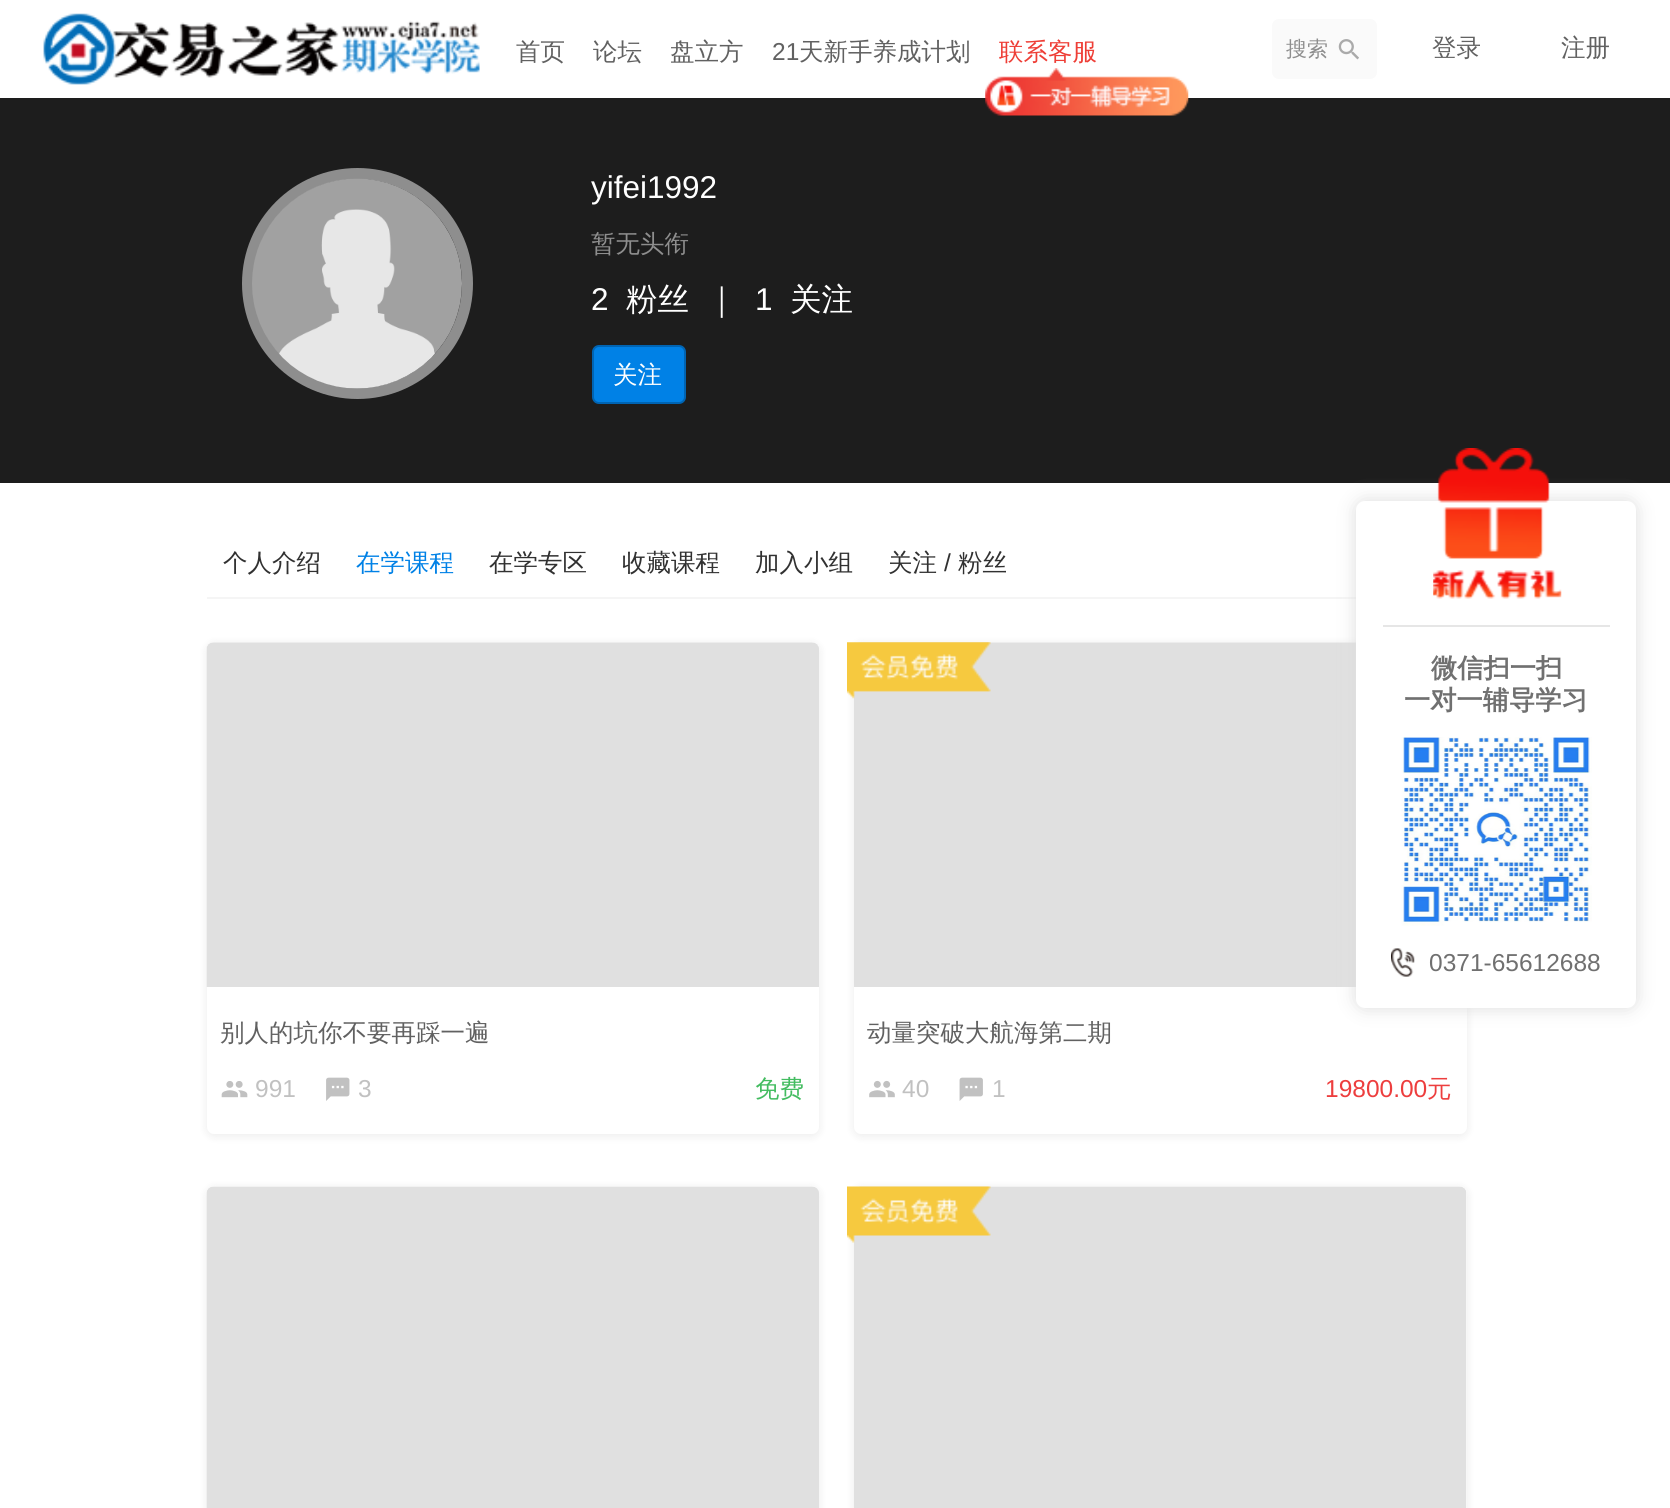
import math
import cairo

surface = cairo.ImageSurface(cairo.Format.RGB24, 1670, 1508)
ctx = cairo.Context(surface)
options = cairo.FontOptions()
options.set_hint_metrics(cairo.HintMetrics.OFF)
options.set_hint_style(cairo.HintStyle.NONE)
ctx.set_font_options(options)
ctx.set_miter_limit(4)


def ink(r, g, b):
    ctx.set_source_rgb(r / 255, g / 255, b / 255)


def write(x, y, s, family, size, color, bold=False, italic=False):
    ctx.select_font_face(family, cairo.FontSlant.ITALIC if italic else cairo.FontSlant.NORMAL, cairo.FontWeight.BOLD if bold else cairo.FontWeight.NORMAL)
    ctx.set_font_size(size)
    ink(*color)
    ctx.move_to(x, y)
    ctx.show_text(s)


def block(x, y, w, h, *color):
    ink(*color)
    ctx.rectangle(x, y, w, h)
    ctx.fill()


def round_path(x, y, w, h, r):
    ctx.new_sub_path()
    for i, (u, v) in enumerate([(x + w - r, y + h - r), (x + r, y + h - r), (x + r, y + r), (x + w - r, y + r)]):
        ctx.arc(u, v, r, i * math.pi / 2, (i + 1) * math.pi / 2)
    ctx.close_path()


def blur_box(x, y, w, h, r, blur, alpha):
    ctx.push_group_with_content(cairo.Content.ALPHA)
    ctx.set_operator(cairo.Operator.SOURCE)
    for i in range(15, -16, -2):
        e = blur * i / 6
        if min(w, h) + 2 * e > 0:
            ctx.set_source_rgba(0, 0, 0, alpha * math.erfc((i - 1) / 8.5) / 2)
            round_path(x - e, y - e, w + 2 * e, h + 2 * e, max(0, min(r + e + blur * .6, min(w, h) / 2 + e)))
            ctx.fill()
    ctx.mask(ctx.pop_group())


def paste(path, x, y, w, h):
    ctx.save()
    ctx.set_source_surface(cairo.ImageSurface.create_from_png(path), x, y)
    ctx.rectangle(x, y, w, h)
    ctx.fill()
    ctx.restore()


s1 = dict(family="WenQuanYi Zen Hei Medium", size=24.5, color=(97, 97, 97))
s2 = dict(family="Liberation Sans", size=24.5, color=(97, 97, 97))
s3 = dict(family="WenQuanYi Zen Hei Medium", size=24.5, color=(238, 62, 54))
s4 = dict(family="WenQuanYi Zen Hei Medium", size=21, color=(142, 142, 142))
s5 = dict(family="Liberation Sans", size=31.5, color=(255, 255, 255))
s6 = dict(family="WenQuanYi Zen Hei Medium", size=24.5, color=(142, 142, 142))
s7 = dict(family="WenQuanYi Zen Hei Medium", size=31.5, color=(255, 255, 255))
s8 = dict(family="WenQuanYi Zen Hei Medium", size=24.5, color=(255, 255, 255))
s9 = dict(family="WenQuanYi Zen Hei Medium", size=24.5, color=(49, 49, 49))
s10 = dict(family="WenQuanYi Zen Hei Medium", size=24.5, color=(0, 129, 230))
s11 = dict(family="Liberation Sans", size=24.5, color=(49, 49, 49))
s12 = dict(family="Liberation Sans", size=24.5, color=(193, 193, 193))
s13 = dict(family="WenQuanYi Zen Hei Medium", size=24.5, color=(67, 188, 96))
s14 = dict(family="Liberation Sans", size=24.5, color=(237, 62, 62))
s15 = dict(family="WenQuanYi Zen Hei Medium", size=24.5, color=(237, 62, 62))
s16 = dict(family="WenQuanYi Zen Hei", size=26.25, color=(112, 112, 112), bold=True)
s17 = dict(family="Liberation Sans", size=24.5, color=(112, 112, 112))

ink(255, 255, 255)
ctx.paint()
paste("pic1.png", 43, 13, 437, 72)
write(516, 60, "首页", **s1)
write(593, 60, "论坛", **s1)
write(670, 60, "盘立方", **s1)
write(772, 60, "21", **s2)
write(799, 60, "天新手养成计划", **s1)
write(999, 60, "联系客服", **s3)
block(0, 98, 1670, 385, 29, 29, 29)
paste("pic2.png", 985, 68, 204, 48)
ink(250, 250, 250)
round_path(1272, 19, 105, 60, 7)
ctx.fill()
write(1286, 56, "搜索", **s4)
paste("pic3.png", 1338, 39, 21, 21)
write(1432, 56, "登录", **s1)
write(1561, 56, "注册", **s1)
ctx.new_path()
ctx.arc(357.5, 283.5, 110, 0, 2 * math.pi)
ink(142, 142, 142)
ctx.set_line_width(11)
ctx.stroke()
paste("pic4.png", 252, 178, 210, 211)
write(591, 198, "yifei1992", **s5)
write(591, 252, "暂无头衔", **s6)
write(591, 310, "2", **s5)
write(626, 310, "粉丝", **s7)
write(706, 310, "｜", **s7)
write(755, 310, "1", **s5)
write(790, 310, "关注", **s7)
ink(0, 129, 230)
round_path(593, 346, 92, 57, 6)
ctx.fill_preserve()
ink(0, 100, 179)
ctx.set_line_width(2)
ctx.stroke()
write(613, 383, "关注", **s8)
block(207, 597, 1149, 2, 245, 245, 245)
write(223, 571, "个人介绍", **s9)
write(356, 571, "在学课程", **s10)
write(489, 571, "在学专区", **s9)
write(622, 571, "收藏课程", **s9)
write(755, 571, "加入小组", **s9)
write(888, 571, "关注", **s9)
write(944, 571, "/", **s11)
write(958, 571, "粉丝", **s9)
ink(0, 0, 0)
blur_box(207, 644, 612, 492, 7, 5, 0.08)
ink(255, 255, 255)
round_path(207, 642, 612, 492, 7)
ctx.fill()
paste("pic5.png", 206, 642, 613, 345)
write(220, 1041, "别人的坑你不要再踩一遍", **s1)
paste("pic6.png", 221, 1081, 27, 17)
write(255, 1097, "991", **s12)
paste("pic7.png", 326, 1077, 24, 24)
write(358, 1097, "3", **s12)
write(755, 1097, "免费", **s13)
ink(0, 0, 0)
blur_box(854, 644, 613, 492, 7, 5, 0.08)
ink(255, 255, 255)
round_path(854, 642, 613, 492, 7)
ctx.fill()
paste("pic9.png", 854, 642, 502, 345)
paste("pic8.png", 847, 642, 144, 57)
write(867, 1041, "动量突破大航海第二期", **s1)
paste("pic10.png", 869, 1080, 26, 18)
write(902, 1097, "40", **s12)
paste("pic11.png", 959, 1077, 24, 24)
write(992, 1097, "1", **s12)
write(1325, 1097, "19800.00", **s14)
write(1427, 1097, "元", **s15)
ink(0, 0, 0)
blur_box(207, 1188, 612, 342, 7, 5, 0.08)
paste("pic12.png", 206, 1186, 613, 322)
blur_box(854, 1188, 613, 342, 7, 5, 0.08)
ink(255, 255, 255)
round_path(854, 1187, 613, 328, 7)
ctx.fill()
paste("pic14.png", 854, 1186, 613, 322)
paste("pic13.png", 847, 1186, 144, 57)
ink(221, 221, 221)
blur_box(1356, 501, 280, 507, 9, 9, 1)
ink(255, 255, 255)
round_path(1356, 501, 280, 507, 9)
ctx.fill()
paste("pic15.png", 1433, 448, 129, 151)
block(1383, 625, 227, 2, 230, 230, 230)
write(1431, 677, "微信扫一扫", **s16)
write(1404, 709, "一对一辅导学习", **s16)
paste("pic16.png", 1401, 737, 191, 189)
paste("pic17.png", 1391, 948, 24, 29)
write(1429, 971, "0371-65612688", **s17)
surface.write_to_png("screenshot.png")
